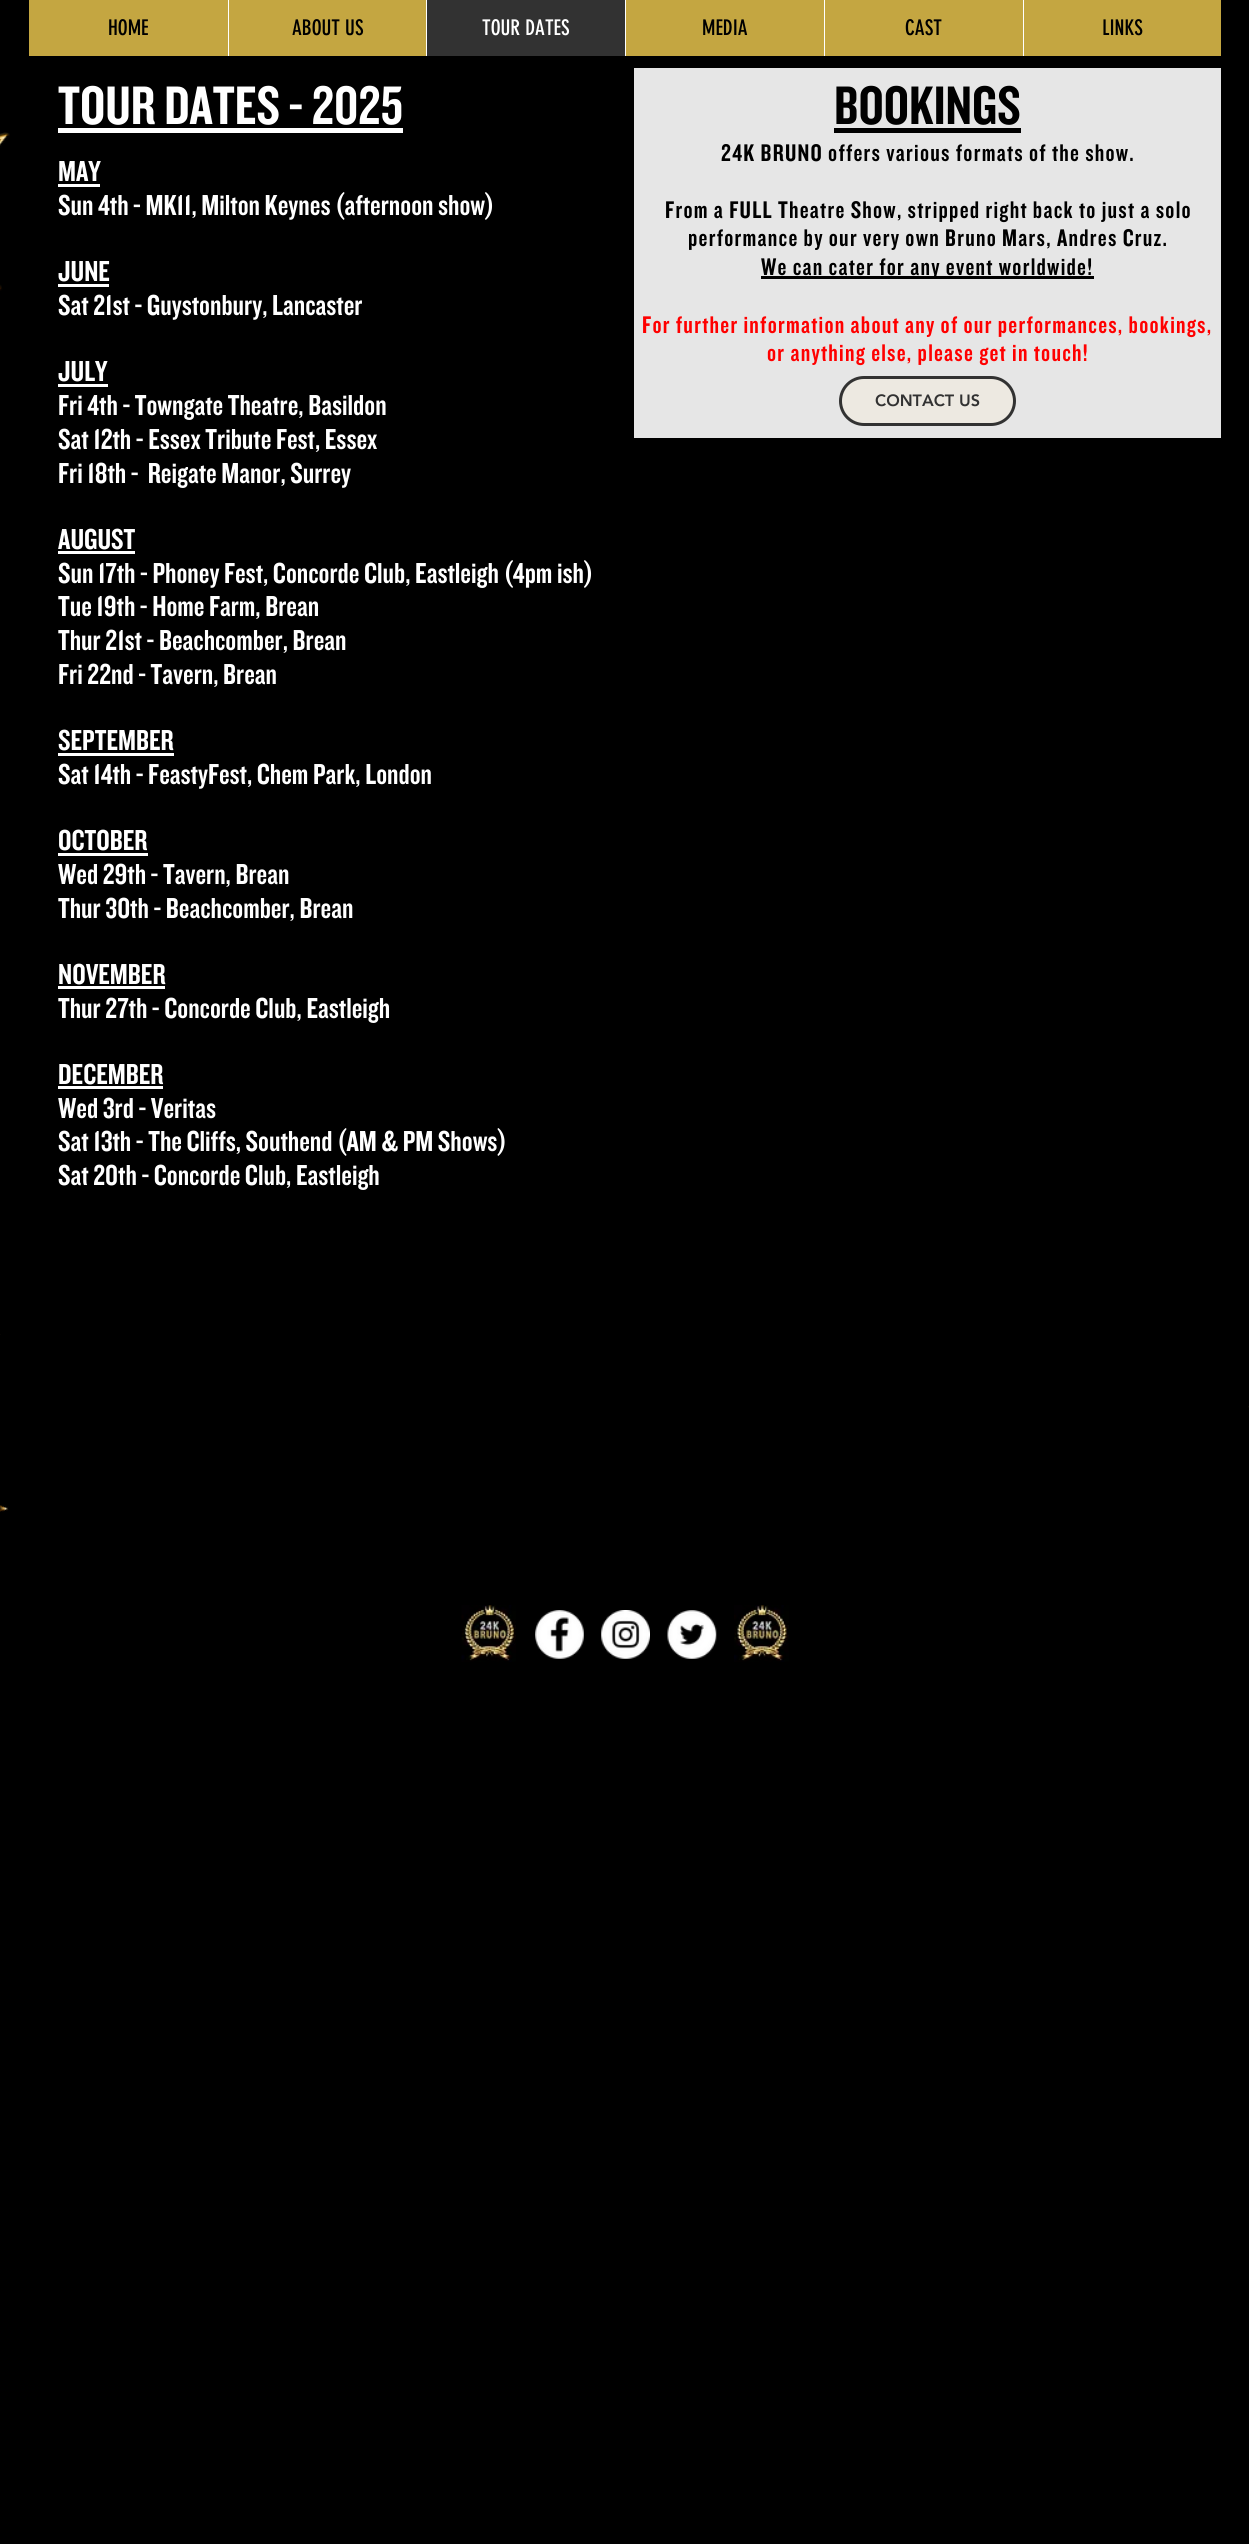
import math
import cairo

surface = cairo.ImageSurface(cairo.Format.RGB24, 1249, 2544)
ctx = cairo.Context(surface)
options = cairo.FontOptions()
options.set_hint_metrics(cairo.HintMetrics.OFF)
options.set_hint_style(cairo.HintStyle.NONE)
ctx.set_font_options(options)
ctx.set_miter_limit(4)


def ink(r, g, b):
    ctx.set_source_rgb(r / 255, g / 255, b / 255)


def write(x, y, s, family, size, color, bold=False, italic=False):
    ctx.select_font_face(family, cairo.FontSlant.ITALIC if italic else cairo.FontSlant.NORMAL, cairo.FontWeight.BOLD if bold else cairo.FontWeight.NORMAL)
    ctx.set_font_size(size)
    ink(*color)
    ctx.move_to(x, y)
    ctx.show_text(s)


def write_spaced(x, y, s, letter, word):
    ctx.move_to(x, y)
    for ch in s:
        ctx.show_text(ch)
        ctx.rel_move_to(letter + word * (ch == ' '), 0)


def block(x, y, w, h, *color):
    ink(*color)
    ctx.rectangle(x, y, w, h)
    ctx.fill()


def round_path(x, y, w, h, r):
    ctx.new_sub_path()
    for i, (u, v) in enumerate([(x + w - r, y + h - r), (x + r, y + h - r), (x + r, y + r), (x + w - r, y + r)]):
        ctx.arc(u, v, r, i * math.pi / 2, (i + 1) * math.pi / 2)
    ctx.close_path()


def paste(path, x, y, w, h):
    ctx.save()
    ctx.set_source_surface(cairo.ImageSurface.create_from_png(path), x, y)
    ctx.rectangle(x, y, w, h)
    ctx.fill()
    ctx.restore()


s1 = dict(family="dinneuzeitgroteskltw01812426", size=21.25, color=(0, 0, 0))
s2 = dict(family="dinneuzeitgroteskltw01812426", size=21.25, color=(255, 255, 255))
s3 = dict(family="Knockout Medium", size=56.25, color=(255, 255, 255))
s4 = dict(family="Knockout Medium", size=30, color=(255, 255, 255))
s5 = dict(family="Knockout Medium", size=56.25, color=(0, 0, 0))
s6 = dict(family="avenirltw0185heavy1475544 Black", size=16.25, color=(50, 50, 50))

ink(0, 0, 0)
ctx.paint()
block(29, 0, 1192, 56, 196, 166, 65)
write(108, 35, "HOME", **s1)
block(228, 0, 1, 56, 255, 255, 255)
write(292, 35, "ABOUT US", **s1)
block(427, 0, 198, 56, 50, 50, 50)
block(426, 0, 1, 56, 255, 255, 255)
write(482, 35, "TOUR DATES", **s2)
block(625, 0, 1, 56, 255, 255, 255)
write(702, 35, "MEDIA", **s1)
block(824, 0, 1, 56, 255, 255, 255)
write(905, 35, "CAST", **s1)
block(1023, 0, 1, 56, 255, 255, 255)
write(1102, 35, "LINKS", **s1)
paste("pic1.png", 0, 132, 10, 159)
write(58, 124, "TOUR DATES - 2025", **s3)
block(58, 128, 345, 5, 255, 255, 255)
write(58, 181, "MAY", **s4)
block(58, 184, 42, 3, 255, 255, 255)
write(58, 215, "Sun 4th - MK11, Milton Keynes (afternoon show)", **s4)
write(58, 281, "JUNE", **s4)
block(58, 284, 51, 3, 255, 255, 255)
write(58, 315, "Sat 21st - Guystonbury, Lancaster", **s4)
write(58, 381, "JULY", **s4)
block(58, 384, 50, 3, 255, 255, 255)
write(58, 415, "Fri 4th - Towngate Theatre, Basildon", **s4)
write(58, 449, "Sat 12th - Essex Tribute Fest, Essex", **s4)
write(58, 483, "Fri 18th -  Reigate Manor, Surrey", **s4)
write(58, 549, "AUGUST", **s4)
block(58, 551, 77, 3, 255, 255, 255)
write(58, 583, "Sun 17th - Phoney Fest, Concorde Club, Eastleigh (4pm ish)", **s4)
write(58, 616, "Tue 19th - Home Farm, Brean", **s4)
write(58, 650, "Thur 21st - Beachcomber, Brean", **s4)
write(58, 684, "Fri 22nd - Tavern, Brean", **s4)
write(58, 750, "SEPTEMBER", **s4)
block(58, 753, 116, 3, 255, 255, 255)
write(58, 784, "Sat 14th - FeastyFest, Chem Park, London", **s4)
write(58, 850, "OCTOBER", **s4)
block(58, 853, 90, 3, 255, 255, 255)
write(58, 884, "Wed 29th - Tavern, Brean", **s4)
write(58, 918, "Thur 30th - Beachcomber, Brean", **s4)
write(58, 984, "NOVEMBER", **s4)
block(58, 986, 107, 3, 255, 255, 255)
write(58, 1018, "Thur 27th - Concorde Club, Eastleigh", **s4)
write(58, 1084, "DECEMBER", **s4)
block(58, 1086, 105, 3, 255, 255, 255)
write(58, 1118, "Wed 3rd - Veritas", **s4)
write(58, 1151, "Sat 13th - The Cliffs, Southend (AM & PM Shows)", **s4)
write(58, 1185, "Sat 20th - Concorde Club, Eastleigh", **s4)
block(634, 68, 587, 370, 230, 230, 230)
write(834, 124, "BOOKINGS", **s5)
block(834, 128, 187, 5, 0, 0, 0)
ctx.set_font_size(25)
write_spaced(721, 161, "24K BRUNO offers various formats of the show.", 1.25, 0)
write_spaced(665, 218, "From a FULL Theatre Show, stripped right back to just a solo", 1.25, 0)
write_spaced(688, 246, "performance by our very own Bruno Mars, Andres Cruz.", 1.25, 0)
block(761, 276, 333, 3, 0, 0, 0)
write_spaced(761, 275, "We can cater for any event worldwide!", 1.25, 0)
ink(255, 0, 0)
write_spaced(642, 333, "For further information about any of our performances, bookings,", 1.25, 0)
write_spaced(767, 361, "or anything else, please get in touch!", 1.25, 0)
ink(237, 233, 225)
round_path(840.5, 377.5, 174, 47, 23.5)
ctx.fill_preserve()
ink(50, 50, 50)
ctx.set_line_width(3)
ctx.stroke()
write(875, 406, "CONTACT US", **s6)
block(0, 1334, 1, 1, 6, 5, 2)
paste("pic2.png", 1248, 1406, 1, 2)
paste("pic3.png", 0, 1505, 9, 7)
paste("pic4.png", 461, 1605, 55, 57)
paste("pic5.png", 535, 1610, 49, 49)
paste("pic6.png", 601, 1610, 49, 49)
paste("pic7.png", 667, 1610, 50, 49)
paste("pic8.png", 734, 1605, 55, 57)
surface.write_to_png("screenshot.png")
